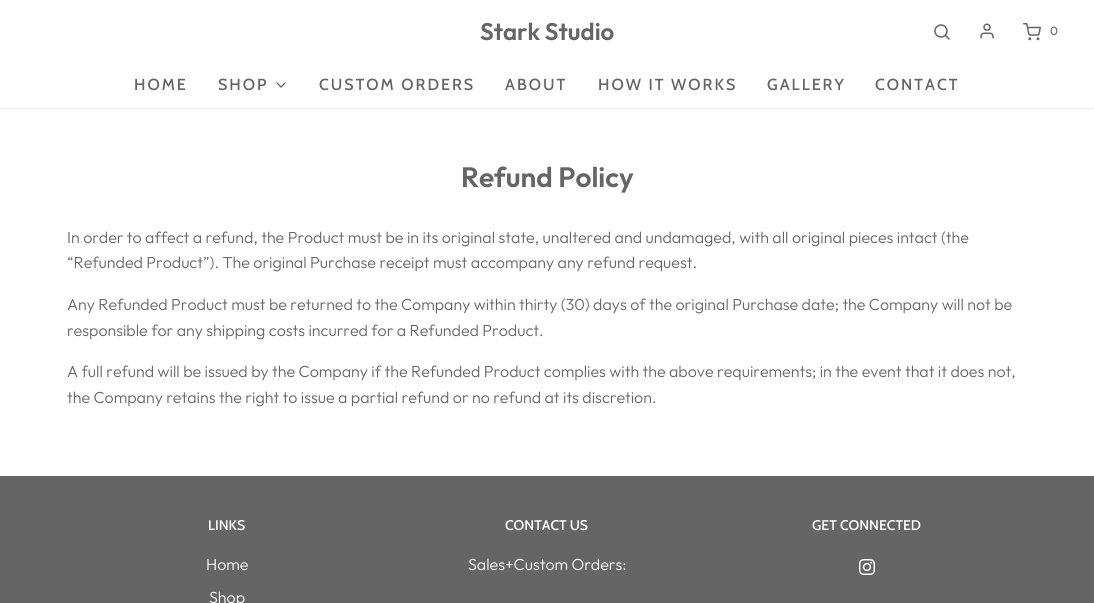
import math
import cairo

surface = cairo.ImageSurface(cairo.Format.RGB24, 1094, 603)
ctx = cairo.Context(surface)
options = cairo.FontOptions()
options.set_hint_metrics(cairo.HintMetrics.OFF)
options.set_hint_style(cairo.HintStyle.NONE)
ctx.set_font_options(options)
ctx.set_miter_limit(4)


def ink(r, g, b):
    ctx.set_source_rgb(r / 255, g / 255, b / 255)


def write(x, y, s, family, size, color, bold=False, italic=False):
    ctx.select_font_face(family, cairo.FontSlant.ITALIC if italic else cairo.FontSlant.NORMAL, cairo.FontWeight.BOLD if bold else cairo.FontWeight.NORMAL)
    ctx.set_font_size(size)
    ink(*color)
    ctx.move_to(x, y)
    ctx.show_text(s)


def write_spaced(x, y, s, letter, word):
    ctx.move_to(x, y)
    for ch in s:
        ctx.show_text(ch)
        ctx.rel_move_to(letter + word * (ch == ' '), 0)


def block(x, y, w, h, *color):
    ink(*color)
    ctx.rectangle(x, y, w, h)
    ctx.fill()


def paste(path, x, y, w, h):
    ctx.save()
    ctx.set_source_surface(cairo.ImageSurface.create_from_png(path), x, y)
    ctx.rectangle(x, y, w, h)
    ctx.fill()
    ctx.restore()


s1 = dict(family="Outfit SemiBold", size=24, color=(101, 101, 101))
s2 = dict(family="Outfit", size=12, color=(101, 101, 101))
s3 = dict(family="Outfit SemiBold", size=28, color=(101, 101, 101))
s4 = dict(family="Outfit Light", size=16, color=(101, 101, 101))
s5 = dict(family="Cabin Medium", size=14, color=(255, 255, 255))
s6 = dict(family="Outfit Light", size=16, color=(255, 255, 255))

ink(255, 255, 255)
ctx.paint()
block(0, 108, 1094, 1, 240, 240, 240)
write(480, 40, "Stark Studio", **s1)
ctx.new_path()
ctx.arc(941, 31, 6, 0, 2 * math.pi)
ctx.set_line_width(1.5)
ctx.stroke()
ctx.new_path()
ctx.move_to(949, 39)
ctx.line_to(945.5, 35.5)
ctx.set_line_cap(cairo.LineCap.ROUND)
ctx.set_line_join(cairo.LineJoin.ROUND)
ctx.stroke()
paste("pic1.png", 980, 23, 14, 16)
paste("pic2.png", 1023, 23, 18, 18)
write(1050, 35, "0", **s2)
ctx.select_font_face("Cabin Medium")
ctx.set_font_size(16)
write_spaced(134, 90, "HOME", 2, 0)
write_spaced(218, 90, "SHOP", 2, 0)
ctx.new_path()
ctx.move_to(277, 83)
ctx.line_to(281, 87)
ctx.line_to(285, 83)
ctx.set_line_width(1.3)
ctx.stroke()
write_spaced(319, 90, "CUSTOM ORDERS", 2, 0)
write_spaced(505, 90, "ABOUT", 2, 0)
write_spaced(598, 90, "HOW IT WORKS", 2, 0)
write_spaced(767, 90, "GALLERY", 2, 0)
write_spaced(875, 90, "CONTACT", 2, 0)
write(461, 187, "Refund Policy", **s3)
write(67, 243, "In order to affect a refund, the Product must be in its original state, unaltered and undamaged, with all original pieces intact (the", **s4)
write(67, 268, "“Refunded Product”). The original Purchase receipt must accompany any refund request.", **s4)
write(67, 310, "Any Refunded Product must be returned to the Company within thirty (30) days of the original Purchase date; the Company will not be", **s4)
write(67, 336, "responsible for any shipping costs incurred for a Refunded Product.", **s4)
write(67, 377, "A full refund will be issued by the Company if the Refunded Product complies with the above requirements; in the event that it does not,", **s4)
write(67, 403, "the Company retains the right to issue a partial refund or no refund at its discretion.", **s4)
block(0, 476, 1094, 127, 101, 101, 101)
write(208, 530, "LINKS", **s5)
write(206, 570, "Home", **s6)
write(209, 603, "Shop", **s6)
write(505, 530, "CONTACT US", **s5)
write(468, 570, "Sales+Custom Orders:", **s6)
write(812, 530, "GET CONNECTED", **s5)
paste("pic3.png", 859, 559, 16, 16)
surface.write_to_png("screenshot.png")
